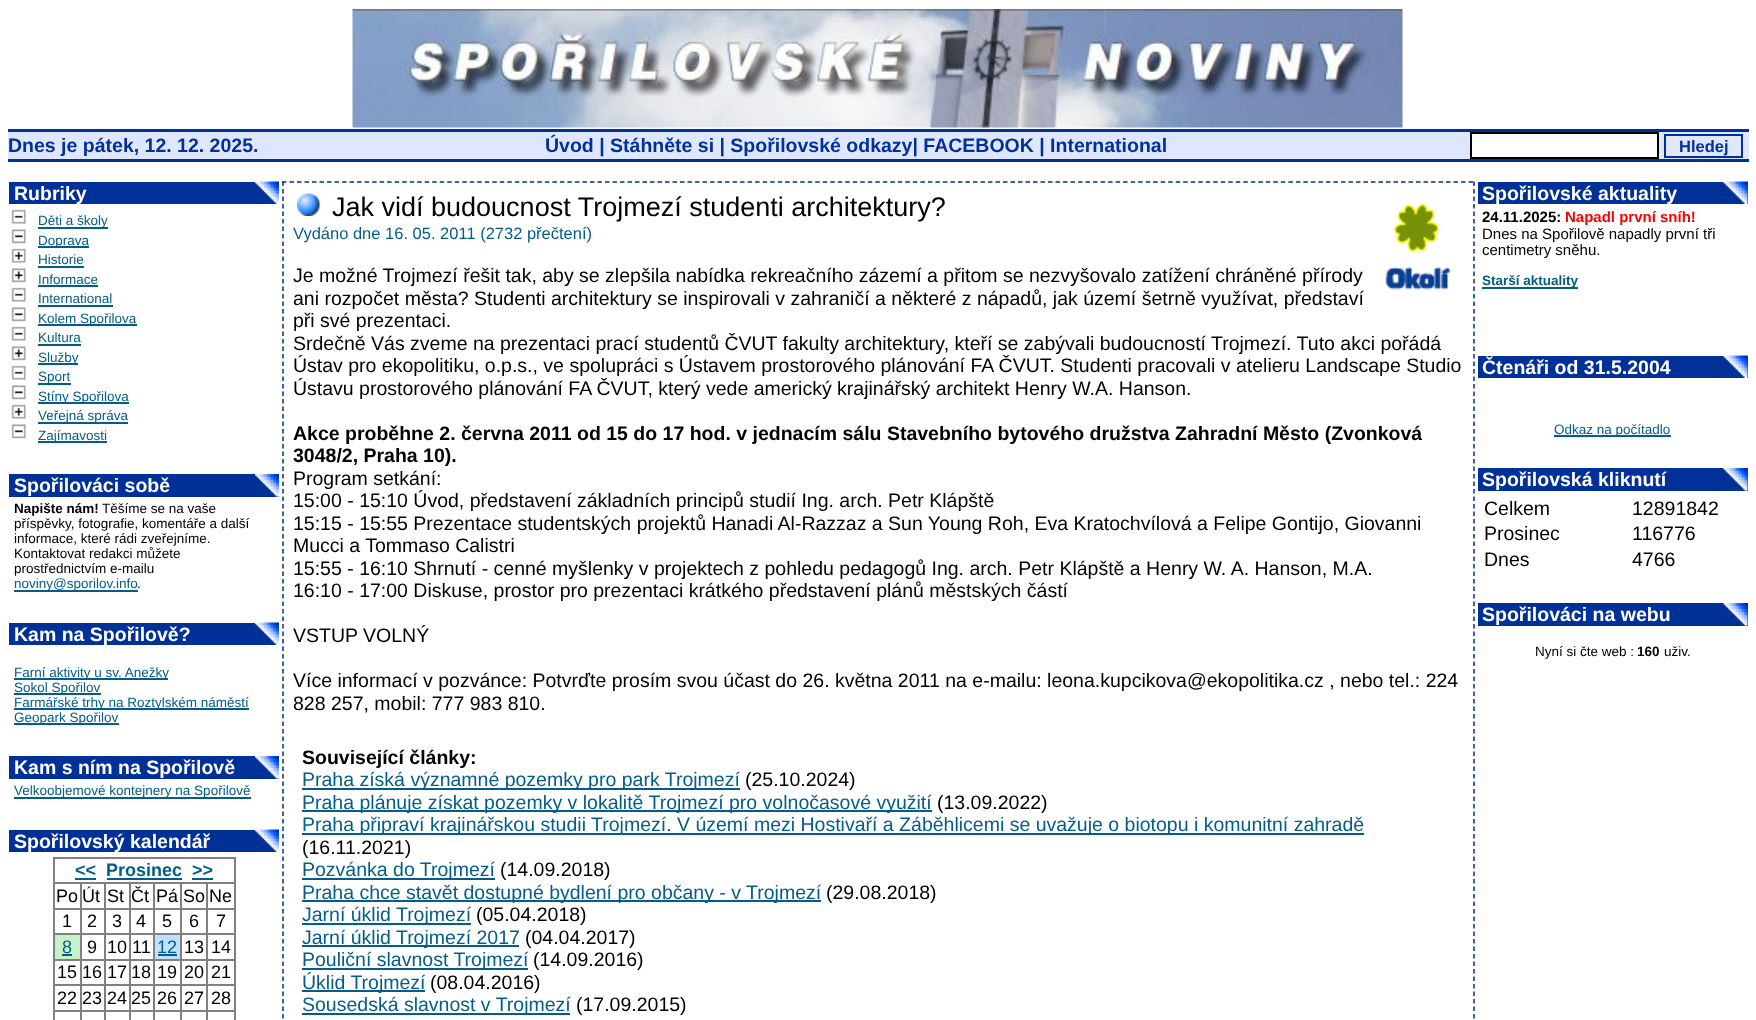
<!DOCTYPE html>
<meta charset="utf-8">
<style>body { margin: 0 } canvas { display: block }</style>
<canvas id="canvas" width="1756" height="1020"></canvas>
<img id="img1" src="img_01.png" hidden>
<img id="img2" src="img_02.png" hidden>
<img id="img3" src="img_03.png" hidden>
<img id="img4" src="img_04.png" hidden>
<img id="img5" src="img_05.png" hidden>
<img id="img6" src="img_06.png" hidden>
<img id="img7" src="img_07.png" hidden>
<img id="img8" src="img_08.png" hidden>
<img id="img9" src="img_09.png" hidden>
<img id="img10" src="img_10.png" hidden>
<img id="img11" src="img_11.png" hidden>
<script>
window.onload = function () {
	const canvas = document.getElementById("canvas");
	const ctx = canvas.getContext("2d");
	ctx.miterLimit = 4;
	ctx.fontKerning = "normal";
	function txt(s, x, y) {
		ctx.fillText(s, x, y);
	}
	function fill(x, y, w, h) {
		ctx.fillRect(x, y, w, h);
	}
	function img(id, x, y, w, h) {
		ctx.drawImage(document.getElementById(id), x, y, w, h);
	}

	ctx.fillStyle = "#FFFFFF";
	fill(0, 0, 1756, 1020);
	img("img1", 352, 9, 1051, 119);
	ctx.fillStyle = "#DEE7FF";
	fill(8, 132, 1741, 27);
	ctx.fillStyle = "#003098";
	fill(8, 129, 1741, 3);
	fill(8, 159, 1741, 3);
	ctx.fillStyle = "#FFFFFF";
	ctx.beginPath();
	ctx.rect(1471, 133, 187, 25);
	ctx.fill();
	ctx.strokeStyle = "#000000";
	ctx.lineWidth = 2;
	ctx.stroke();
	ctx.strokeStyle = "#003098";
	ctx.strokeRect(1665, 135, 77, 22);
	ctx.fillStyle = "#003098";
	fill(9, 182, 246, 22);
	img("img2", 255, 181, 24, 23);
	img("img3", 11, 209, 15, 15);
	ctx.fillStyle = "#035D8A";
	fill(38, 227, 70, 2);
	img("img4", 11, 229, 15, 15);
	fill(38, 246, 51, 2);
	img("img5", 11, 248, 15, 15);
	fill(38, 266, 46, 2);
	img("img6", 11, 268, 15, 15);
	fill(38, 285, 60, 2);
	img("img3", 11, 287, 15, 15);
	fill(38, 305, 75, 2);
	img("img4", 11, 307, 15, 15);
	fill(38, 324, 99, 2);
	img("img3", 11, 326, 15, 15);
	fill(38, 344, 43, 2);
	img("img6", 11, 346, 15, 15);
	fill(38, 363, 40, 2);
	img("img3", 11, 365, 15, 15);
	fill(38, 383, 33, 2);
	img("img4", 11, 385, 15, 15);
	fill(38, 402, 91, 2);
	img("img5", 11, 404, 15, 15);
	fill(38, 422, 90, 2);
	img("img4", 11, 424, 15, 15);
	fill(38, 441, 69, 2);
	ctx.fillStyle = "#003098";
	fill(9, 474, 270, 23);
	img("img7", 255, 474, 24, 23);
	ctx.fillStyle = "#035D8A";
	fill(14, 590, 124, 2);
	ctx.fillStyle = "#003098";
	fill(9, 623, 246, 22);
	img("img2", 255, 622, 24, 23);
	ctx.fillStyle = "#035D8A";
	fill(14, 678, 154, 2);
	fill(14, 693, 87, 2);
	fill(14, 708, 235, 2);
	fill(14, 723, 105, 2);
	ctx.fillStyle = "#003098";
	fill(9, 756, 270, 23);
	img("img7", 255, 756, 24, 23);
	ctx.fillStyle = "#035D8A";
	fill(14, 797, 237, 2);
	ctx.fillStyle = "#003098";
	fill(9, 830, 246, 22);
	img("img2", 255, 829, 24, 23);
	ctx.fillStyle = "#808080";
	fill(53, 857, 183, 2);
	fill(234, 857, 2, 163);
	fill(53, 857, 2, 163);
	ctx.fillStyle = "#035D8A";
	fill(75, 878, 21, 2);
	fill(107, 878, 75, 2);
	fill(192, 878, 21, 2);
	ctx.fillStyle = "#808080";
	fill(206, 882, 30, 2);
	fill(206, 908, 30, 2);
	fill(206, 933, 30, 2);
	fill(206, 959, 30, 2);
	fill(206, 984, 30, 2);
	fill(206, 1010, 30, 2);
	fill(206, 1010, 2, 10);
	fill(180, 1010, 27, 2);
	fill(206, 984, 2, 27);
	fill(180, 984, 27, 2);
	fill(206, 959, 2, 27);
	fill(180, 959, 27, 2);
	fill(206, 933, 2, 27);
	fill(180, 933, 27, 2);
	fill(206, 908, 2, 27);
	fill(180, 908, 27, 2);
	fill(206, 882, 2, 27);
	fill(180, 882, 27, 2);
	fill(180, 1010, 2, 10);
	fill(153, 1010, 29, 2);
	fill(180, 984, 2, 27);
	fill(153, 984, 29, 2);
	fill(180, 959, 2, 27);
	fill(153, 959, 29, 2);
	fill(180, 933, 2, 27);
	fill(153, 933, 29, 2);
	fill(180, 908, 2, 27);
	fill(153, 908, 29, 2);
	fill(180, 882, 2, 27);
	fill(153, 882, 29, 2);
	fill(153, 1010, 2, 10);
	fill(129, 1010, 26, 2);
	fill(153, 984, 2, 27);
	fill(129, 984, 26, 2);
	fill(153, 959, 2, 27);
	fill(129, 959, 26, 2);
	fill(153, 933, 2, 27);
	fill(129, 933, 26, 2);
	fill(153, 908, 2, 27);
	fill(129, 908, 26, 2);
	fill(153, 882, 2, 27);
	fill(129, 882, 26, 2);
	fill(129, 1010, 2, 10);
	fill(104, 1010, 27, 2);
	fill(129, 984, 2, 27);
	fill(104, 984, 27, 2);
	fill(129, 959, 2, 27);
	fill(104, 959, 27, 2);
	fill(129, 933, 2, 27);
	fill(104, 933, 27, 2);
	fill(129, 908, 2, 27);
	fill(104, 908, 27, 2);
	fill(129, 882, 2, 27);
	fill(104, 882, 27, 2);
	fill(104, 1010, 2, 10);
	fill(80, 1010, 25, 2);
	fill(104, 984, 2, 27);
	fill(80, 984, 25, 2);
	fill(104, 959, 2, 27);
	fill(80, 959, 25, 2);
	fill(104, 933, 2, 27);
	fill(80, 933, 25, 2);
	fill(104, 908, 2, 27);
	fill(80, 908, 25, 2);
	fill(104, 882, 2, 27);
	fill(80, 882, 25, 2);
	fill(80, 1010, 2, 10);
	fill(53, 1010, 28, 2);
	fill(80, 984, 2, 27);
	fill(53, 984, 28, 2);
	fill(80, 959, 2, 27);
	fill(53, 959, 28, 2);
	fill(80, 933, 2, 27);
	fill(53, 933, 28, 2);
	fill(80, 908, 2, 27);
	fill(53, 908, 28, 2);
	fill(80, 882, 2, 27);
	fill(53, 882, 28, 2);
	ctx.fillStyle = "#C7F1C7";
	fill(55, 935, 25, 24);
	ctx.fillStyle = "#035D8A";
	fill(62, 954, 10, 2);
	ctx.fillStyle = "#C1E0FF";
	fill(155, 935, 25, 24);
	ctx.fillStyle = "#035D8A";
	fill(158, 954, 19, 2);
	ctx.beginPath();
	ctx.moveTo(282, 182);
	ctx.lineTo(1474.5, 182);
	ctx.lineWidth = 1.5;
	ctx.setLineDash([4.5, 3.01]);
	ctx.stroke();
	ctx.beginPath();
	ctx.moveTo(1474, 181.5);
	ctx.lineTo(1474, 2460);
	ctx.setLineDash([4.5, 3]);
	ctx.stroke();
	ctx.beginPath();
	ctx.moveTo(283, 181.5);
	ctx.lineTo(283, 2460);
	ctx.stroke();
	img("img8", 297, 193, 23, 23);
	img("img9", 1385, 203, 66, 87);
	fill(302, 788, 438, 2);
	fill(302, 810, 630, 2);
	fill(302, 833, 1062, 2);
	fill(302, 878, 193, 2);
	fill(302, 900, 519, 2);
	fill(302, 923, 169, 2);
	fill(302, 945, 217, 2);
	fill(302, 968, 226, 2);
	fill(302, 990, 123, 2);
	fill(302, 1013, 268, 2);
	ctx.fillStyle = "#003098";
	fill(1478, 182, 270, 22);
	img("img10", 1723, 181, 25, 23);
	ctx.fillStyle = "#035D8A";
	fill(1482, 287, 96, 2);
	ctx.fillStyle = "#003098";
	fill(1478, 356, 270, 22);
	img("img10", 1723, 355, 25, 23);
	ctx.fillStyle = "#035D8A";
	fill(1554, 435, 117, 2);
	ctx.fillStyle = "#003098";
	fill(1478, 468, 270, 23);
	img("img11", 1723, 468, 25, 23);
	fill(1478, 603, 270, 23);
	img("img11", 1723, 603, 25, 23);
	ctx.font = "bold 19.5px Liberation Sans";
	txt("Dnes je pátek, 12. 12. 2025.", 8, 152);
	txt("Úvod | Stáhněte si | Spořilovské odkazy| FACEBOOK | International", 545, 152);
	ctx.font = "bold 16.5px Liberation Sans";
	txt("Hledej", 1679, 152);
	ctx.font = "bold 19.5px Liberation Sans";
	ctx.fillStyle = "#FFFFFF";
	txt("Rubriky", 14, 200);
	ctx.font = "13.5px Liberation Sans";
	ctx.fillStyle = "#035D8A";
	txt("Děti a školy", 38, 225);
	txt("Doprava", 38, 245);
	txt("Historie", 38, 264);
	txt("Informace", 38, 284);
	txt("International", 38, 303);
	txt("Kolem Spořilova", 38, 323);
	txt("Kultura", 38, 342);
	txt("Služby", 38, 362);
	txt("Sport", 38, 381);
	txt("Stíny Spořilova", 38, 401);
	txt("Veřejná správa", 38, 420);
	txt("Zajímavosti", 38, 440);
	ctx.font = "bold 19.5px Liberation Sans";
	ctx.fillStyle = "#FFFFFF";
	txt("Spořilováci sobě", 14, 492);
	ctx.font = "bold 13.5px Liberation Sans";
	ctx.fillStyle = "#000000";
	txt("Napište nám!", 14, 513);
	ctx.font = "13.5px Liberation Sans";
	txt("Těšíme se na vaše", 102, 513);
	txt("příspěvky, fotografie, komentáře a další", 14, 528);
	txt("informace, které rádi zveřejníme.", 14, 543);
	txt("Kontaktovat redakci můžete", 14, 558);
	txt("prostřednictvím e-mailu", 14, 573);
	ctx.fillStyle = "#035D8A";
	txt("noviny@sporilov.info", 14, 588);
	ctx.fillStyle = "#000000";
	txt(".", 137, 588);
	ctx.font = "bold 19.5px Liberation Sans";
	ctx.fillStyle = "#FFFFFF";
	txt("Kam na Spořilově?", 14, 641);
	ctx.font = "13.5px Liberation Sans";
	ctx.fillStyle = "#035D8A";
	txt("Farní aktivity u sv. Anežky", 14, 677);
	txt("Sokol Spořilov", 14, 692);
	txt("Farmářské trhy na Roztylském náměstí", 14, 707);
	txt("Geopark Spořilov", 14, 722);
	ctx.font = "bold 19.5px Liberation Sans";
	ctx.fillStyle = "#FFFFFF";
	txt("Kam s ním na Spořilově", 14, 774);
	ctx.font = "13.5px Liberation Sans";
	ctx.fillStyle = "#035D8A";
	txt("Velkoobjemové kontejnery na Spořilově", 14, 795);
	ctx.font = "bold 19.5px Liberation Sans";
	ctx.fillStyle = "#FFFFFF";
	txt("Spořilovský kalendář", 14, 848);
	ctx.font = "bold 18px Liberation Sans";
	ctx.fillStyle = "#035D8A";
	txt("<<", 75, 876);
	txt("Prosinec", 106, 876);
	txt(">>", 192, 876);
	ctx.font = "18px Liberation Sans";
	ctx.fillStyle = "#000000";
	txt("Po", 56, 902);
	txt("Út", 82, 902);
	txt("St", 107, 902);
	txt("Čt", 131, 902);
	txt("Pá", 156, 902);
	txt("So", 183, 902);
	txt("Ne", 209, 902);
	txt("1", 62, 927);
	txt("2", 87, 927);
	txt("3", 112, 927);
	txt("4", 136, 927);
	txt("5", 162, 927);
	txt("6", 189, 927);
	txt("7", 216, 927);
	ctx.fillStyle = "#035D8A";
	txt("8", 62, 953);
	ctx.fillStyle = "#000000";
	txt("9", 87, 953);
	txt("10 11", 107, 953);
	ctx.fillStyle = "#035D8A";
	txt("12", 157, 953);
	ctx.fillStyle = "#000000";
	txt("13", 184, 953);
	txt("14", 211, 953);
	txt("15", 57, 978);
	txt("16", 82, 978);
	txt("17", 107, 978);
	txt("18", 131, 978);
	txt("19", 157, 978);
	txt("20", 184, 978);
	txt("21", 211, 978);
	txt("22", 57, 1004);
	txt("23", 82, 1004);
	txt("24", 107, 1004);
	txt("25", 131, 1004);
	txt("26", 157, 1004);
	txt("27", 184, 1004);
	txt("28", 211, 1004);
	ctx.font = "27px Liberation Sans";
	txt("Jak vidí budoucnost Trojmezí studenti architektury?", 332, 216);
	ctx.font = "16.5px Liberation Sans";
	ctx.fillStyle = "#035D8A";
	txt("Vydáno dne 16. 05. 2011 (2732 přečtení)", 293, 239);
	ctx.font = "19.5px Liberation Sans";
	ctx.fillStyle = "#000000";
	txt("Je možné Trojmezí řešit tak, aby se zlepšila nabídka rekreačního zázemí a přitom se nezvyšovalo zatížení chráněné přírody", 293, 282);
	txt("ani rozpočet města? Studenti architektury se inspirovali v zahraničí a některé z nápadů, jak území šetrně využívat, představí", 293, 305);
	txt("při své prezentaci.", 293, 327);
	txt("Srdečně Vás zveme na prezentaci prací studentů ČVUT fakulty architektury, kteří se zabývali budoucností", 293, 350);
	txt("Trojmezí. Tuto akci pořádá", 1211, 350);
	txt("Ústav pro ekopolitiku, o.p.s., ve spolupráci s Ústavem prostorového plánování FA ČVUT. Studenti pracovali v atelieru Landscape Studio", 293, 372);
	txt("Ústavu prostorového plánování FA ČVUT, který vede americký krajinářský architekt Henry W.A. Hanson.", 293, 395);
	ctx.font = "bold 19.5px Liberation Sans";
	txt("Akce proběhne 2. června 2011 od 15 do 17 hod. v jednacím sálu Stavebního bytového družstva Zahradní Město (Zvonková", 293, 440);
	txt("3048/2, Praha 10).", 293, 462);
	ctx.font = "19.5px Liberation Sans";
	txt("Program setkání:", 293, 485);
	txt("15:00 - 15:10 Úvod, představení základních principů studií Ing. arch. Petr Klápště", 293, 507);
	txt("15:15 - 15:55 Prezentace studentských projektů Hanadi Al-Razzaz a Sun Young Roh, Eva Kratochvílová a Felipe Gontijo, Giovanni", 293, 530);
	txt("Mucci a Tommaso Calistri", 293, 552);
	txt("15:55 - 16:10 Shrnutí - cenné myšlenky v projektech z pohledu pedagogů Ing. arch. Petr Klápště a Henry W. A. Hanson, M.A.", 293, 575);
	txt("16:10 - 17:00 Diskuse, prostor pro prezentaci krátkého představení plánů městských částí", 293, 597);
	txt("VSTUP VOLNÝ", 293, 642);
	txt("Více informací v pozvánce: Potvrďte prosím svou účast do 26. května 2011 na e-mailu: leona.kupcikova@ekopolitika.cz , nebo tel.: 224", 293, 687);
	txt("828 257, mobil: 777 983 810.", 293, 710);
	ctx.font = "bold 19.5px Liberation Sans";
	txt("Související články:", 302, 764);
	ctx.font = "19.5px Liberation Sans";
	ctx.fillStyle = "#035D8A";
	txt("Praha získá významné pozemky pro park Trojmezí", 302, 786);
	ctx.fillStyle = "#000000";
	txt("(25.10.2024)", 745, 786);
	ctx.fillStyle = "#035D8A";
	txt("Praha plánuje získat pozemky v lokalitě Trojmezí pro volnočasové využití", 302, 809);
	ctx.fillStyle = "#000000";
	txt("(13.09.2022)", 937, 809);
	ctx.fillStyle = "#035D8A";
	txt("Praha připraví krajinářskou studii Trojmezí. V území mezi Hostivaří a Záběhlicemi se uvažuje o biotopu i komunitní zahradě", 302, 831);
	ctx.fillStyle = "#000000";
	txt("(16.11.2021)", 302, 854);
	ctx.fillStyle = "#035D8A";
	txt("Pozvánka do Trojmezí", 302, 876);
	ctx.fillStyle = "#000000";
	txt("(14.09.2018)", 500, 876);
	ctx.fillStyle = "#035D8A";
	txt("Praha chce stavět dostupné bydlení pro občany - v Trojmezí", 302, 899);
	ctx.fillStyle = "#000000";
	txt("(29.08.2018)", 826, 899);
	ctx.fillStyle = "#035D8A";
	txt("Jarní úklid Trojmezí", 302, 921);
	ctx.fillStyle = "#000000";
	txt("(05.04.2018)", 476, 921);
	ctx.fillStyle = "#035D8A";
	txt("Jarní úklid Trojmezí 2017", 302, 944);
	ctx.fillStyle = "#000000";
	txt("(04.04.2017)", 525, 944);
	ctx.fillStyle = "#035D8A";
	txt("Pouliční slavnost Trojmezí", 302, 966);
	ctx.fillStyle = "#000000";
	txt("(14.09.2016)", 533, 966);
	ctx.fillStyle = "#035D8A";
	txt("Úklid Trojmezí", 302, 989);
	ctx.fillStyle = "#000000";
	txt("(08.04.2016)", 430, 989);
	ctx.fillStyle = "#035D8A";
	txt("Sousedská slavnost v Trojmezí", 302, 1011);
	ctx.fillStyle = "#000000";
	txt("(17.09.2015)", 576, 1011);
	ctx.font = "bold 19.5px Liberation Sans";
	ctx.fillStyle = "#FFFFFF";
	txt("Spořilovské aktuality", 1482, 200);
	ctx.font = "bold 15px Liberation Sans";
	ctx.fillStyle = "#000000";
	txt("24.11.2025:", 1482, 222);
	ctx.fillStyle = "#FF0000";
	txt("Napadl první sníh!", 1565, 222);
	ctx.font = "15px Liberation Sans";
	ctx.fillStyle = "#000000";
	txt("Dnes na Spořilově napadly první tři", 1482, 239);
	txt("centimetry sněhu.", 1482, 255);
	ctx.font = "bold 13.5px Liberation Sans";
	ctx.fillStyle = "#035D8A";
	txt("Starší aktuality", 1482, 285);
	ctx.font = "bold 19.5px Liberation Sans";
	ctx.fillStyle = "#FFFFFF";
	txt("Čtenáři od 31.5.2004", 1482, 374);
	ctx.font = "13.5px Liberation Sans";
	ctx.fillStyle = "#035D8A";
	txt("Odkaz na počítadlo", 1554, 434);
	ctx.font = "bold 19.5px Liberation Sans";
	ctx.fillStyle = "#FFFFFF";
	txt("Spořilovská kliknutí", 1482, 486);
	ctx.font = "19.5px Liberation Sans";
	ctx.fillStyle = "#000000";
	txt("Celkem", 1484, 515);
	txt("12891842", 1632, 515);
	txt("Prosinec", 1484, 540);
	txt("116776", 1632, 540);
	txt("Dnes", 1484, 566);
	txt("4766", 1632, 566);
	ctx.font = "bold 19.5px Liberation Sans";
	ctx.fillStyle = "#FFFFFF";
	txt("Spořilováci na webu", 1482, 621);
	ctx.font = "13.5px Liberation Sans";
	ctx.fillStyle = "#000000";
	txt("Nyní si čte web :", 1535, 656);
	ctx.font = "bold 13.5px Liberation Sans";
	txt("160", 1637, 656);
	ctx.font = "13.5px Liberation Sans";
	txt("uživ.", 1664, 656);
};
</script>
